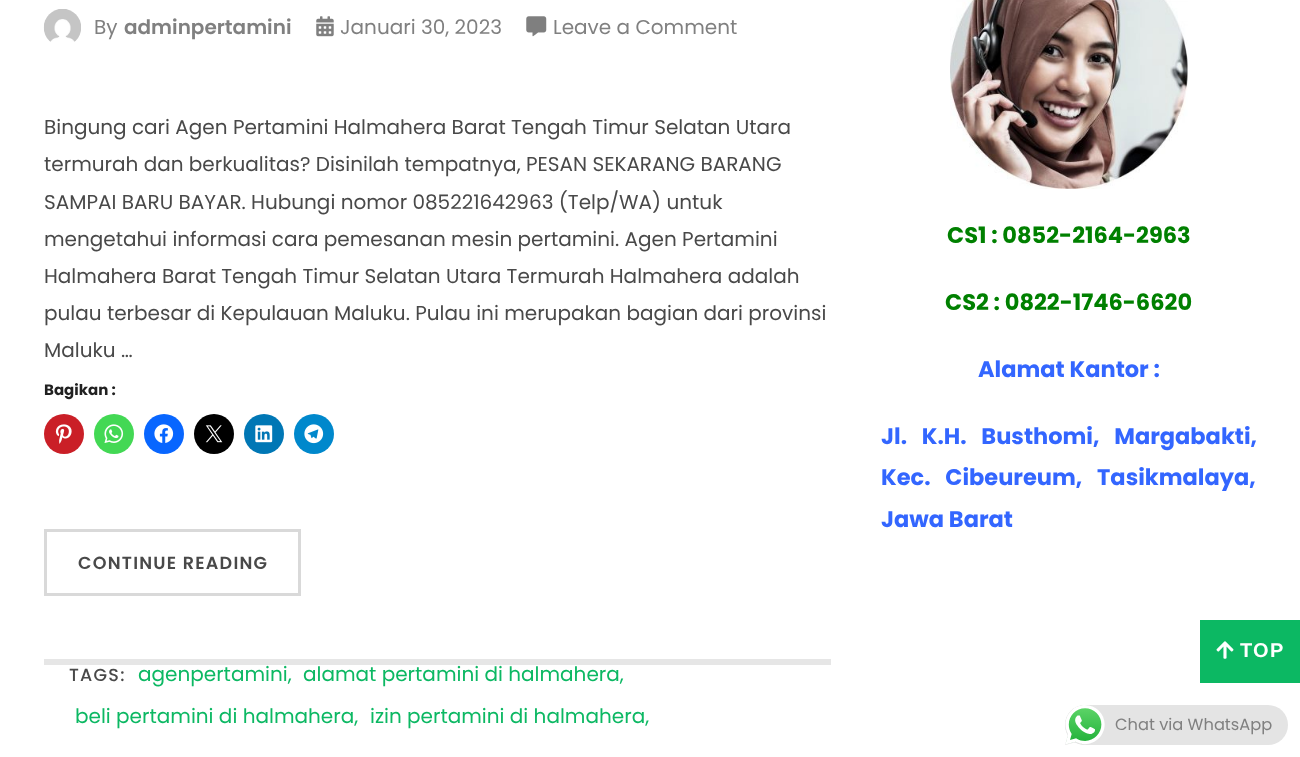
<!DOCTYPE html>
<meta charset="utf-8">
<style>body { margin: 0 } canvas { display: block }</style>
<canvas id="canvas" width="1300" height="757"></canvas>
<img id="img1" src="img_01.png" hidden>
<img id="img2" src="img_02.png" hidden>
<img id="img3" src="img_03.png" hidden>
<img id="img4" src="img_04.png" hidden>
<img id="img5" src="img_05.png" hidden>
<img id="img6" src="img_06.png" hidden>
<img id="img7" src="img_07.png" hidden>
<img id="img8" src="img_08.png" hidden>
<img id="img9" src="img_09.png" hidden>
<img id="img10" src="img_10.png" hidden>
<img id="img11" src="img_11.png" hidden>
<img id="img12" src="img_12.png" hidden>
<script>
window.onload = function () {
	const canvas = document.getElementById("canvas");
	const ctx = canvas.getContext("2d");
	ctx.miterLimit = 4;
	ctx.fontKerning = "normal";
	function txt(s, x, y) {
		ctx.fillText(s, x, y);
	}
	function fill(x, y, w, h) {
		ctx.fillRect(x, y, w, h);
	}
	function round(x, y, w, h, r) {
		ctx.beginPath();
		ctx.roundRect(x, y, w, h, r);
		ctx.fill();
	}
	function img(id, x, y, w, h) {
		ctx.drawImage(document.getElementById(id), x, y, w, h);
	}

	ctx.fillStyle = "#FFFFFF";
	fill(0, 0, 1300, 757);
	ctx.fillStyle = "#E6E6E6";
	fill(44, 659, 787, 6);
	img("img1", 43, 9, 38, 33);
	img("img2", 316, 16, 18, 21);
	img("img3", 526, 16, 21, 21);
	ctx.fillStyle = "#CA1F27";
	ctx.beginPath();
	ctx.arc(64, 434, 20, 0, Math.PI * 2);
	ctx.fill();
	img("img4", 55, 424, 17, 20);
	ctx.fillStyle = "#43D854";
	ctx.beginPath();
	ctx.arc(114, 434, 20, 0, Math.PI * 2);
	ctx.fill();
	img("img5", 104, 424, 20, 19);
	ctx.fillStyle = "#0866FF";
	ctx.beginPath();
	ctx.arc(164, 434, 20, 0, Math.PI * 2);
	ctx.fill();
	img("img6", 154, 424, 20, 19);
	ctx.fillStyle = "#000000";
	ctx.beginPath();
	ctx.arc(214, 434, 20, 0, Math.PI * 2);
	ctx.fill();
	img("img7", 205, 425, 18, 18);
	ctx.fillStyle = "#0077B5";
	ctx.beginPath();
	ctx.arc(264, 434, 20, 0, Math.PI * 2);
	ctx.fill();
	img("img8", 255, 425, 18, 18);
	ctx.fillStyle = "#0088CC";
	ctx.beginPath();
	ctx.arc(314, 434, 20, 0, Math.PI * 2);
	ctx.fill();
	img("img9", 304, 424, 20, 20);
	ctx.strokeStyle = "#D9D9D9";
	ctx.lineWidth = 3;
	ctx.strokeRect(45.5, 530.5, 254, 64);
	img("img10", 950, 0, 238, 189);
	ctx.fillStyle = "#0CB863";
	fill(1200, 620, 100, 63);
	img("img11", 1216, 641, 18, 18);
	ctx.fillStyle = "#E4E4E4";
	round(1065, 705, 223, 40, 20);
	img("img12", 1065, 705, 40, 40);
	ctx.font = "20px Poppins";
	ctx.fillStyle = "#808080";
	txt("By", 94, 34);
	ctx.font = "600 20px Poppins";
	txt("adminpertamini", 124, 34);
	ctx.font = "20px Poppins";
	txt("Januari 30, 2023", 340, 34);
	txt("Leave a Comment", 553, 34);
	ctx.fillStyle = "#494949";
	txt("Bingung cari Agen Pertamini Halmahera Barat Tengah Timur Selatan Utara", 44, 134);
	txt("termurah dan berkualitas? Disinilah tempatnya, PESAN SEKARANG BARANG", 44, 171);
	txt("SAMPAI BARU BAYAR. Hubungi nomor 085221642963 (Telp/WA) untuk", 44, 209);
	txt("mengetahui informasi cara pemesanan mesin pertamini. Agen Pertamini", 44, 246);
	txt("Halmahera Barat Tengah Timur Selatan Utara Termurah Halmahera adalah", 44, 283);
	txt("pulau terbesar di Kepulauan Maluku. Pulau ini merupakan bagian dari provinsi", 44, 320);
	txt("Maluku …", 44, 357);
	ctx.font = "bold 15px Poppins";
	ctx.fillStyle = "#212121";
	txt("Bagikan :", 44, 395);
	ctx.letterSpacing = "1.25px";
	ctx.font = "600 17.5px Poppins";
	ctx.fillStyle = "#494949";
	txt("CONTINUE READING", 78, 569);
	ctx.font = "500 17.5px Poppins";
	txt("TAGS:", 69, 681);
	ctx.letterSpacing = "0px";
	ctx.font = "20px Poppins";
	ctx.fillStyle = "#0CB863";
	txt("agenpertamini,", 138, 681);
	txt("alamat pertamini di halmahera,", 303, 681);
	txt("beli pertamini di halmahera,", 75, 723);
	txt("izin pertamini di halmahera,", 370, 723);
	ctx.font = "bold 22.5px Poppins";
	ctx.fillStyle = "#008000";
	txt("CS1 : 0852-2164-2963", 947, 243);
	txt("CS2 : 0822-1746-6620", 945, 310);
	ctx.fillStyle = "#3366FF";
	txt("Alamat Kantor :", 978, 377);
	ctx.wordSpacing = "10px";
	txt("Jl. K.H. Busthomi, Margabakti,", 881, 444);
	txt("Kec. Cibeureum, Tasikmalaya,", 881, 485);
	ctx.wordSpacing = "0px";
	txt("Jawa Barat", 881, 527);
	ctx.letterSpacing = "1.25px";
	ctx.font = "bold 20px Liberation Sans";
	ctx.fillStyle = "#FFFFFF";
	txt("TOP", 1240, 657);
	ctx.letterSpacing = "0px";
	ctx.font = "16.25px Poppins";
	ctx.fillStyle = "#808080";
	txt("Chat via WhatsApp", 1115, 730);
};
</script>
